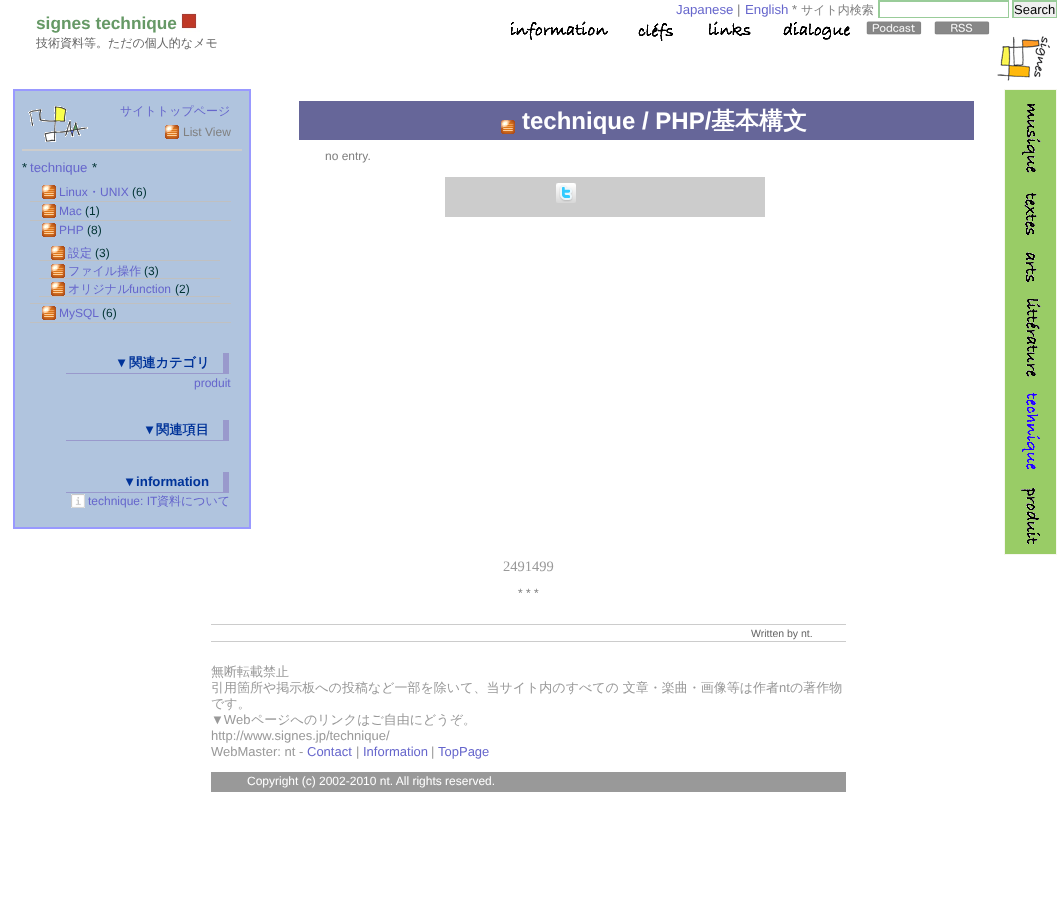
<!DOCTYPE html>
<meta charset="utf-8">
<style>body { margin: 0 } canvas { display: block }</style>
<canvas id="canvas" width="1057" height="922"></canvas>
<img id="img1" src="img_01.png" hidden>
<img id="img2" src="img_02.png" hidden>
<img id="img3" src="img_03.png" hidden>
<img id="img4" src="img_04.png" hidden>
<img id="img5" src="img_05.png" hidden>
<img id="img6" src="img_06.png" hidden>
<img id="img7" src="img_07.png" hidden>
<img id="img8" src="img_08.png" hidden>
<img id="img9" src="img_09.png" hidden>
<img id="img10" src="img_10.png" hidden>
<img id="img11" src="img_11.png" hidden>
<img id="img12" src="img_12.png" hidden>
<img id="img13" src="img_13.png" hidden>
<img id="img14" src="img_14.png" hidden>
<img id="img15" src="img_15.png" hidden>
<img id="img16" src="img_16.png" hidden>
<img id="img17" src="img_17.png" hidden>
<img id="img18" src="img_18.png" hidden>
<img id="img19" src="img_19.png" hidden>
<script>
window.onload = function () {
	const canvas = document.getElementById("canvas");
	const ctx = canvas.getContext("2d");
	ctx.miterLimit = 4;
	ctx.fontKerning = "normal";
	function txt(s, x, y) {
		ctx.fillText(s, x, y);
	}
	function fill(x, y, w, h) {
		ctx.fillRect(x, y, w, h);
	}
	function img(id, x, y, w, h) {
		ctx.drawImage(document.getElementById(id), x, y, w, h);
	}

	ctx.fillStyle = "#FFFFFF";
	fill(0, 0, 1057, 922);
	ctx.fillStyle = "#99CC99";
	fill(878, 0, 131, 2);
	fill(1008, 0, 1, 18);
	fill(878, 17, 131, 1);
	fill(878, 0, 2, 18);
	ctx.fillStyle = "#EFEFEF";
	fill(1014, 2, 42, 15);
	ctx.fillStyle = "#99CC99";
	fill(1012, 0, 45, 2);
	fill(1056, 0, 1, 18);
	fill(1012, 17, 45, 1);
	fill(1012, 0, 2, 18);
	img("img1", 511, 21, 97, 19);
	img("img2", 638, 23, 35, 18);
	img("img3", 709, 21, 42, 15);
	img("img4", 783, 22, 67, 18);
	img("img5", 866, 21, 56, 14);
	img("img6", 934, 21, 56, 14);
	img("img7", 997, 36, 53, 45);
	img("img8", 181, 12, 19, 20);
	ctx.fillStyle = "#B0C4DE";
	ctx.beginPath();
	ctx.rect(14, 90, 236, 438);
	ctx.fill();
	ctx.strokeStyle = "#9999FF";
	ctx.lineWidth = 2;
	ctx.stroke();
	img("img9", 28, 106, 60, 36);
	img("img10", 165, 125, 14, 14);
	ctx.fillStyle = "#CCCCCC";
	fill(22, 149, 220, 2);
	ctx.fillStyle = "#C0C0C0";
	fill(30, 201, 201, 1);
	img("img10", 42, 185, 14, 14);
	fill(30, 220, 201, 1);
	img("img10", 42, 204, 14, 14);
	fill(30, 303, 201, 1);
	img("img10", 42, 223, 14, 14);
	fill(39, 260, 181, 1);
	img("img10", 51, 246, 14, 14);
	fill(39, 278, 181, 1);
	img("img10", 51, 264, 14, 14);
	fill(39, 296, 181, 1);
	img("img10", 51, 282, 14, 14);
	fill(30, 322, 201, 1);
	img("img10", 42, 306, 14, 14);
	ctx.fillStyle = "#9999CC";
	fill(223, 353, 6, 21);
	fill(66, 373, 163, 1);
	fill(223, 420, 6, 21);
	fill(66, 440, 163, 1);
	fill(223, 472, 6, 21);
	fill(66, 492, 163, 1);
	img("img11", 71, 494, 14, 14);
	ctx.fillStyle = "#666699";
	fill(299, 101, 675, 39);
	img("img12", 501, 120, 14, 14);
	ctx.fillStyle = "#CCCCCC";
	fill(445, 177, 320, 40);
	img("img13", 556, 183, 20, 20);
	ctx.fillStyle = "#F6F7EE";
	fill(1004, 89, 53, 466);
	ctx.fillStyle = "#99CC66";
	fill(1005, 90, 51, 464);
	img("img14", 1021, 104, 20, 69);
	img("img15", 1024, 193, 13, 42);
	img("img16", 1025, 252, 12, 30);
	img("img17", 1026, 299, 15, 78);
	img("img18", 1022, 393, 18, 76);
	img("img19", 1021, 488, 19, 57);
	ctx.fillStyle = "#CCCCCC";
	fill(211, 624, 635, 1);
	fill(211, 641, 635, 1);
	ctx.fillStyle = "#999999";
	fill(211, 772, 635, 20);
	ctx.font = "13.25px Liberation Sans";
	ctx.fillStyle = "#6666CC";
	txt("Japanese", 676, 14);
	ctx.fillStyle = "#808080";
	txt("|", 737, 14);
	ctx.fillStyle = "#6666CC";
	txt("English", 745, 14);
	ctx.fillStyle = "#808080";
	txt("*", 792, 14);
	ctx.font = "500 12px WenQuanYi Zen Hei";
	txt("サイト内検索", 801, 14);
	ctx.font = "13px Liberation Sans";
	ctx.fillStyle = "#000000";
	txt("Search", 1014, 14);
	ctx.font = "bold 17.25px Liberation Sans";
	ctx.fillStyle = "#669966";
	txt("signes technique", 36, 29);
	ctx.font = "500 12px WenQuanYi Zen Hei";
	ctx.fillStyle = "#666666";
	txt("技術資料等。ただの個人的なメモ", 36, 47);
	ctx.fillStyle = "#6666CC";
	txt("サイトトップページ", 120, 115);
	ctx.font = "12px Liberation Sans";
	ctx.fillStyle = "#808080";
	txt("List View", 183, 136);
	ctx.font = "13.25px Liberation Sans";
	ctx.fillStyle = "#003333";
	txt("*", 22, 172);
	ctx.fillStyle = "#6666CC";
	txt("technique", 30, 172);
	ctx.fillStyle = "#003333";
	txt("*", 92, 172);
	ctx.font = "12px Liberation Sans";
	ctx.fillStyle = "#6666CC";
	txt("Linux", 59, 196);
	ctx.font = "500 12px WenQuanYi Zen Hei";
	txt("・", 88, 196);
	ctx.font = "12px Liberation Sans";
	txt("UNIX", 100, 196);
	ctx.fillStyle = "#003333";
	txt("(6)", 132, 196);
	ctx.fillStyle = "#6666CC";
	txt("Mac", 59, 215);
	ctx.fillStyle = "#003333";
	txt("(1)", 85, 215);
	ctx.fillStyle = "#6666CC";
	txt("PHP", 59, 234);
	ctx.fillStyle = "#003333";
	txt("(8)", 87, 234);
	ctx.font = "500 12px WenQuanYi Zen Hei";
	ctx.fillStyle = "#6666CC";
	txt("設定", 68, 257);
	ctx.font = "12px Liberation Sans";
	ctx.fillStyle = "#003333";
	txt("(3)", 95, 257);
	ctx.font = "500 12px WenQuanYi Zen Hei";
	ctx.fillStyle = "#6666CC";
	txt("ファイル操作", 68, 275);
	ctx.font = "12px Liberation Sans";
	ctx.fillStyle = "#003333";
	txt("(3)", 144, 275);
	ctx.font = "500 12px WenQuanYi Zen Hei";
	ctx.fillStyle = "#6666CC";
	txt("オリジナル", 68, 293);
	ctx.font = "12px Liberation Sans";
	txt("function", 129, 293);
	ctx.fillStyle = "#003333";
	txt("(2)", 175, 293);
	ctx.fillStyle = "#6666CC";
	txt("MySQL", 59, 317);
	ctx.fillStyle = "#003333";
	txt("(6)", 102, 317);
	ctx.font = "bold 13.25px Liberation Sans";
	ctx.fillStyle = "#003399";
	txt("▼", 115, 367);
	ctx.font = "bold 13.25px WenQuanYi Zen Hei";
	txt("関連カテゴリ", 129, 367);
	ctx.font = "12px Liberation Sans";
	ctx.fillStyle = "#6666CC";
	txt("produit", 194, 387);
	ctx.font = "bold 13.25px Liberation Sans";
	ctx.fillStyle = "#003399";
	txt("▼", 143, 434);
	ctx.font = "bold 13.25px WenQuanYi Zen Hei";
	txt("関連項目", 156, 434);
	ctx.font = "bold 13.25px Liberation Sans";
	txt("▼information", 123, 486);
	ctx.font = "12px Liberation Sans";
	ctx.fillStyle = "#6666CC";
	txt("technique: IT", 88, 505);
	ctx.font = "500 12px WenQuanYi Zen Hei";
	txt("資料について", 157, 505);
	ctx.font = "bold 24px Liberation Sans";
	ctx.fillStyle = "#FFFFFF";
	txt("technique / PHP/", 522, 129);
	ctx.font = "bold 24px WenQuanYi Zen Hei";
	txt("基本構文", 711, 129);
	ctx.font = "12px Liberation Sans";
	ctx.fillStyle = "#808080";
	txt("no entry.", 325, 160);
	ctx.font = "14.5px Liberation Serif";
	ctx.fillStyle = "#999999";
	txt("2491499", 503, 571);
	ctx.font = "12px Liberation Sans";
	ctx.fillStyle = "#808080";
	txt("* * *", 518, 597);
	ctx.font = "10.5px Liberation Sans";
	ctx.fillStyle = "#666666";
	txt("Written by nt.", 751, 637);
	ctx.font = "500 13px WenQuanYi Zen Hei";
	ctx.fillStyle = "#999999";
	txt("無断転載禁止", 211, 676);
	txt("引用箇所や掲示板への投稿など一部を除いて、当サイト内のすべての 文章・楽曲・画像等は作者", 211, 692);
	ctx.font = "13px Liberation Sans";
	txt("nt", 779, 692);
	ctx.font = "500 13px WenQuanYi Zen Hei";
	txt("の著作物", 790, 692);
	txt("です。", 211, 708);
	ctx.font = "13px Liberation Sans";
	txt("▼Web", 211, 724);
	ctx.font = "500 13px WenQuanYi Zen Hei";
	txt("ページへのリンクはご自由にどうぞ。", 251, 724);
	ctx.font = "13px Liberation Sans";
	txt("http://www.signes.jp/technique/", 211, 740);
	txt("WebMaster: nt -", 211, 756);
	ctx.fillStyle = "#6666CC";
	txt("Contact", 307, 756);
	ctx.fillStyle = "#999999";
	txt("|", 356, 756);
	ctx.fillStyle = "#6666CC";
	txt("Information", 363, 756);
	ctx.fillStyle = "#999999";
	txt("|", 431, 756);
	ctx.fillStyle = "#6666CC";
	txt("TopPage", 438, 756);
	ctx.font = "12px Liberation Sans";
	ctx.fillStyle = "#FFFFFF";
	txt("Copyright (c) 2002-2010 nt. All rights reserved.", 247, 785);
};
</script>
